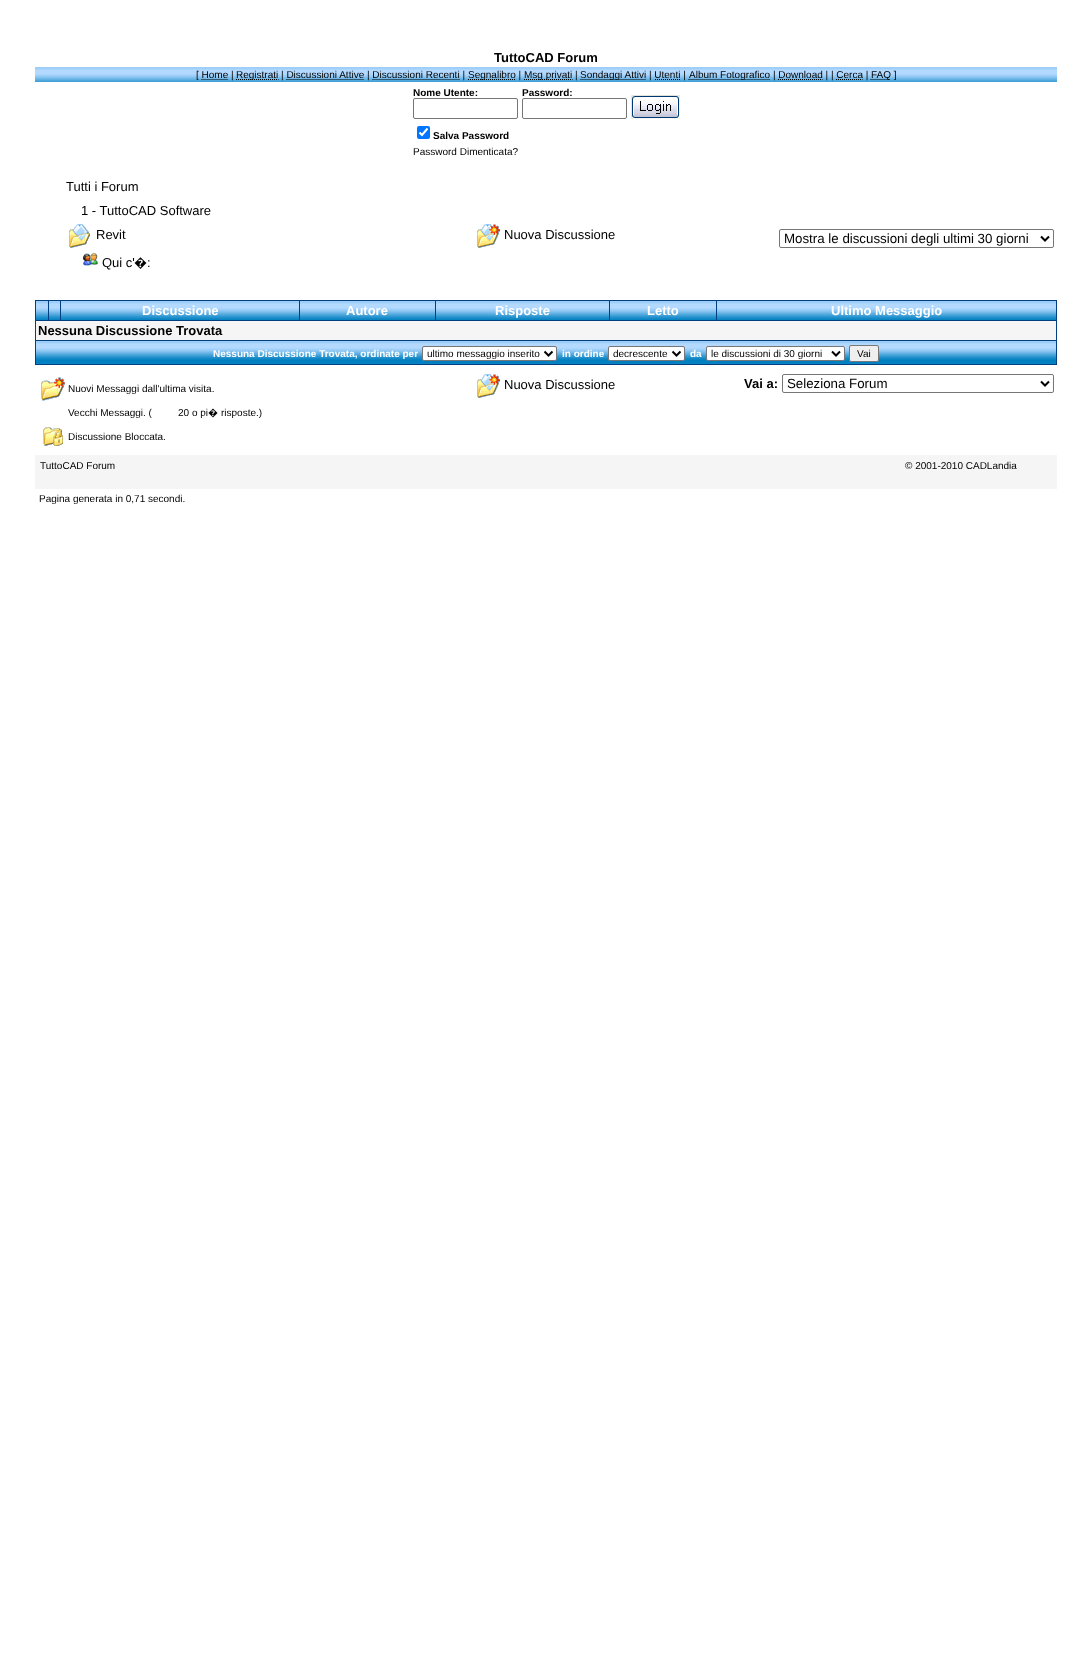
<!DOCTYPE html>
<meta charset="utf-8">
<style>body { margin: 0 } canvas { display: block }</style>
<canvas id="canvas" width="1092" height="1665"></canvas>
<img id="img1" src="img_01.png" hidden>
<img id="img2" src="img_02.png" hidden>
<img id="img3" src="img_03.png" hidden>
<img id="img4" src="img_04.png" hidden>
<img id="img5" src="img_05.png" hidden>
<img id="img6" src="img_06.png" hidden>
<img id="img7" src="img_07.png" hidden>
<img id="img8" src="img_08.png" hidden>
<img id="img9" src="img_09.png" hidden>
<img id="img10" src="img_10.png" hidden>
<img id="img11" src="img_11.png" hidden>
<img id="img12" src="img_12.png" hidden>
<img id="img13" src="img_13.png" hidden>
<img id="img14" src="img_14.png" hidden>
<img id="img15" src="img_15.png" hidden>
<script>
window.onload = function () {
	const canvas = document.getElementById("canvas");
	const ctx = canvas.getContext("2d");
	ctx.miterLimit = 4;
	ctx.fontKerning = "normal";
	function txt(s, x, y) {
		ctx.fillText(s, x, y);
	}
	function fill(x, y, w, h) {
		ctx.fillRect(x, y, w, h);
	}
	function round(x, y, w, h, r) {
		ctx.beginPath();
		ctx.roundRect(x, y, w, h, r);
		ctx.fill();
	}
	function img(id, x, y, w, h) {
		ctx.drawImage(document.getElementById(id), x, y, w, h);
	}

	ctx.fillStyle = "#FFFFFF";
	fill(0, 0, 1092, 1665);
	img("img1", 35, 67, 1022, 15);
	ctx.beginPath();
	ctx.moveTo(201.5, 79.5);
	ctx.lineTo(228, 79.5);
	ctx.strokeStyle = "#000000";
	ctx.setLineDash([1, 1]);
	ctx.stroke();
	ctx.beginPath();
	ctx.moveTo(236, 79.5);
	ctx.lineTo(278.5, 79.5);
	ctx.stroke();
	ctx.beginPath();
	ctx.moveTo(286.5, 79.5);
	ctx.lineTo(364.5, 79.5);
	ctx.stroke();
	ctx.beginPath();
	ctx.moveTo(372.5, 79.5);
	ctx.lineTo(460, 79.5);
	ctx.stroke();
	ctx.beginPath();
	ctx.moveTo(468, 79.5);
	ctx.lineTo(516, 79.5);
	ctx.stroke();
	ctx.beginPath();
	ctx.moveTo(524, 79.5);
	ctx.lineTo(572.5, 79.5);
	ctx.stroke();
	ctx.beginPath();
	ctx.moveTo(580.5, 79.5);
	ctx.lineTo(646.5, 79.5);
	ctx.stroke();
	ctx.beginPath();
	ctx.moveTo(655, 79.5);
	ctx.lineTo(681, 79.5);
	ctx.stroke();
	ctx.beginPath();
	ctx.moveTo(688.5, 79.5);
	ctx.lineTo(769.5, 79.5);
	ctx.stroke();
	ctx.beginPath();
	ctx.moveTo(778, 79.5);
	ctx.lineTo(822.5, 79.5);
	ctx.stroke();
	ctx.beginPath();
	ctx.moveTo(836, 79.5);
	ctx.lineTo(862.5, 79.5);
	ctx.moveTo(870.5, 79.5);
	ctx.lineTo(890.5, 79.5);
	ctx.stroke();
	ctx.beginPath();
	ctx.roundRect(413.5, 98.5, 104, 20, 1.5);
	ctx.strokeStyle = "#767676";
	ctx.setLineDash([]);
	ctx.stroke();
	ctx.beginPath();
	ctx.roundRect(522.5, 98.5, 104, 20, 1.5);
	ctx.stroke();
	img("img2", 631, 95, 49, 24);
	ctx.fillStyle = "#0075FF";
	round(417, 126, 13, 13, 2);
	ctx.beginPath();
	ctx.moveTo(419.5, 132.5);
	ctx.lineTo(422, 135);
	ctx.lineTo(427.5, 128.5);
	ctx.strokeStyle = "#FFFFFF";
	ctx.lineWidth = 2.1;
	ctx.stroke();
	img("img3", 69, 224, 21, 24);
	img("img4", 477, 224, 23, 24);
	ctx.beginPath();
	ctx.roundRect(779.5, 229.5, 274, 18, 1.5);
	ctx.strokeStyle = "#767676";
	ctx.lineWidth = 1;
	ctx.stroke();
	ctx.beginPath();
	ctx.moveTo(1041, 236.5);
	ctx.lineTo(1045, 240.5);
	ctx.lineTo(1049, 236.5);
	ctx.strokeStyle = "#000000";
	ctx.lineWidth = 2;
	ctx.stroke();
	img("img5", 83, 252, 15, 14);
	ctx.fillStyle = "#004080";
	fill(35, 300, 1022, 65);
	img("img6", 36, 301, 12, 19);
	img("img7", 49, 301, 11, 19);
	img("img8", 61, 301, 238, 19);
	img("img9", 300, 301, 135, 19);
	img("img10", 436, 301, 173, 19);
	img("img11", 610, 301, 106, 19);
	img("img12", 717, 301, 339, 19);
	ctx.fillStyle = "#F5F5F5";
	fill(36, 321, 1020, 19);
	img("img13", 36, 341, 1020, 23);
	ctx.fillStyle = "#FFFFFF";
	ctx.beginPath();
	ctx.roundRect(422.5, 346.5, 134, 14, 1.5);
	ctx.fill();
	ctx.strokeStyle = "#767676";
	ctx.lineWidth = 1;
	ctx.stroke();
	ctx.beginPath();
	ctx.moveTo(544.5, 351.5);
	ctx.lineTo(548.5, 355.5);
	ctx.lineTo(552.5, 351.5);
	ctx.strokeStyle = "#000000";
	ctx.lineWidth = 2;
	ctx.stroke();
	ctx.beginPath();
	ctx.roundRect(608.5, 346.5, 76, 14, 1.5);
	ctx.fill();
	ctx.strokeStyle = "#767676";
	ctx.lineWidth = 1;
	ctx.stroke();
	ctx.beginPath();
	ctx.moveTo(672.5, 351.5);
	ctx.lineTo(676.5, 355.5);
	ctx.lineTo(680.5, 351.5);
	ctx.strokeStyle = "#000000";
	ctx.lineWidth = 2;
	ctx.stroke();
	ctx.beginPath();
	ctx.roundRect(706.5, 346.5, 138, 14, 1.5);
	ctx.fill();
	ctx.strokeStyle = "#767676";
	ctx.lineWidth = 1;
	ctx.stroke();
	ctx.beginPath();
	ctx.moveTo(832, 351.5);
	ctx.lineTo(836, 355.5);
	ctx.lineTo(840, 351.5);
	ctx.strokeStyle = "#000000";
	ctx.lineWidth = 2;
	ctx.stroke();
	ctx.fillStyle = "#EFEFEF";
	ctx.beginPath();
	ctx.roundRect(849.5, 345.5, 29, 16, 1.5);
	ctx.fill();
	ctx.strokeStyle = "#767676";
	ctx.lineWidth = 1;
	ctx.stroke();
	img("img14", 41, 377, 24, 24);
	img("img15", 43, 427, 20, 19);
	img("img4", 477, 374, 23, 24);
	ctx.beginPath();
	ctx.roundRect(782.5, 374.5, 271, 18, 1.5);
	ctx.stroke();
	ctx.beginPath();
	ctx.moveTo(1041, 381.5);
	ctx.lineTo(1045, 385.5);
	ctx.lineTo(1049, 381.5);
	ctx.strokeStyle = "#000000";
	ctx.lineWidth = 2;
	ctx.stroke();
	ctx.fillStyle = "#F5F5F5";
	fill(35, 455, 1022, 34);
	ctx.font = "bold 13px Liberation Sans";
	ctx.fillStyle = "#000000";
	txt("TuttoCAD Forum", 494, 62);
	ctx.font = "10px Liberation Sans";
	txt("[ Home |", 196, 78);
	txt("Registrati | Discussioni Attive | Discussioni Recenti |", 236, 78);
	txt("Segnalibro |", 468, 78);
	txt("Msg privati |", 524, 78);
	txt("Sondaggi Attivi | Utenti |", 580, 78);
	txt("Album Fotografico | Download | | Cerca |", 689, 78);
	txt("FAQ ]", 871, 78);
	ctx.font = "bold 10px Liberation Sans";
	txt("Nome Utente:", 413, 96);
	txt("Password:", 522, 96);
	txt("Salva Password", 433, 139);
	ctx.font = "10px Liberation Sans";
	txt("Password Dimenticata?", 413, 155);
	ctx.font = "13px Liberation Sans";
	txt("Tutti i Forum", 66, 191);
	txt("1 - TuttoCAD Software", 81, 215);
	txt("Revit", 96, 239);
	txt("Nuova Discussione", 504, 239);
	ctx.font = "13.3px Liberation Sans";
	txt("Mostra le discussioni degli ultimi 30 giorni", 784, 243);
	ctx.font = "13px Liberation Sans";
	txt("Qui c'", 102, 267);
	ctx.font = "13px Noto Sans";
	txt("�", 134, 267);
	ctx.font = "13px Liberation Sans";
	txt(":", 147, 267);
	ctx.font = "bold 13px Liberation Sans";
	ctx.fillStyle = "#FFFFFF";
	txt("Discussione", 142, 315);
	txt("Autore", 346, 315);
	txt("Risposte", 495, 315);
	txt("Letto", 647, 315);
	txt("Ultimo Messaggio", 831, 315);
	ctx.fillStyle = "#000000";
	txt("Nessuna Discussione Trovata", 38, 335);
	ctx.font = "bold 10px Liberation Sans";
	ctx.fillStyle = "#FFFFFF";
	txt("Nessuna Discussione Trovata, ordinate per", 213, 357);
	ctx.font = "10px Liberation Sans";
	ctx.fillStyle = "#000000";
	txt("ultimo messaggio inserito", 427, 357);
	ctx.font = "bold 10px Liberation Sans";
	ctx.fillStyle = "#FFFFFF";
	txt("in ordine", 562, 357);
	ctx.font = "10px Liberation Sans";
	ctx.fillStyle = "#000000";
	txt("decrescente", 613, 357);
	ctx.font = "bold 10px Liberation Sans";
	ctx.fillStyle = "#FFFFFF";
	txt("da", 690, 357);
	ctx.font = "10px Liberation Sans";
	ctx.fillStyle = "#000000";
	txt("le discussioni di 30 giorni", 711, 357);
	txt("Vai", 857, 357);
	txt("Nuovi Messaggi dall'ultima visita.", 68, 392);
	txt("Vecchi Messaggi. (", 68, 416);
	txt("20 o pi", 178, 416);
	ctx.font = "10px Noto Sans";
	txt("�", 208, 416);
	ctx.font = "10px Liberation Sans";
	txt("risposte.)", 221, 416);
	txt("Discussione Bloccata.", 68, 440);
	ctx.font = "13px Liberation Sans";
	txt("Nuova Discussione", 504, 389);
	ctx.font = "bold 13px Liberation Sans";
	txt("Vai a:", 744, 388);
	ctx.font = "13.3px Liberation Sans";
	txt("Seleziona Forum", 787, 388);
	ctx.font = "10px Liberation Sans";
	txt("TuttoCAD Forum", 40, 469);
	txt("© 2001-2010 CADLandia", 905, 469);
	txt("Pagina generata in 0,71 secondi.", 39, 502);
};
</script>
